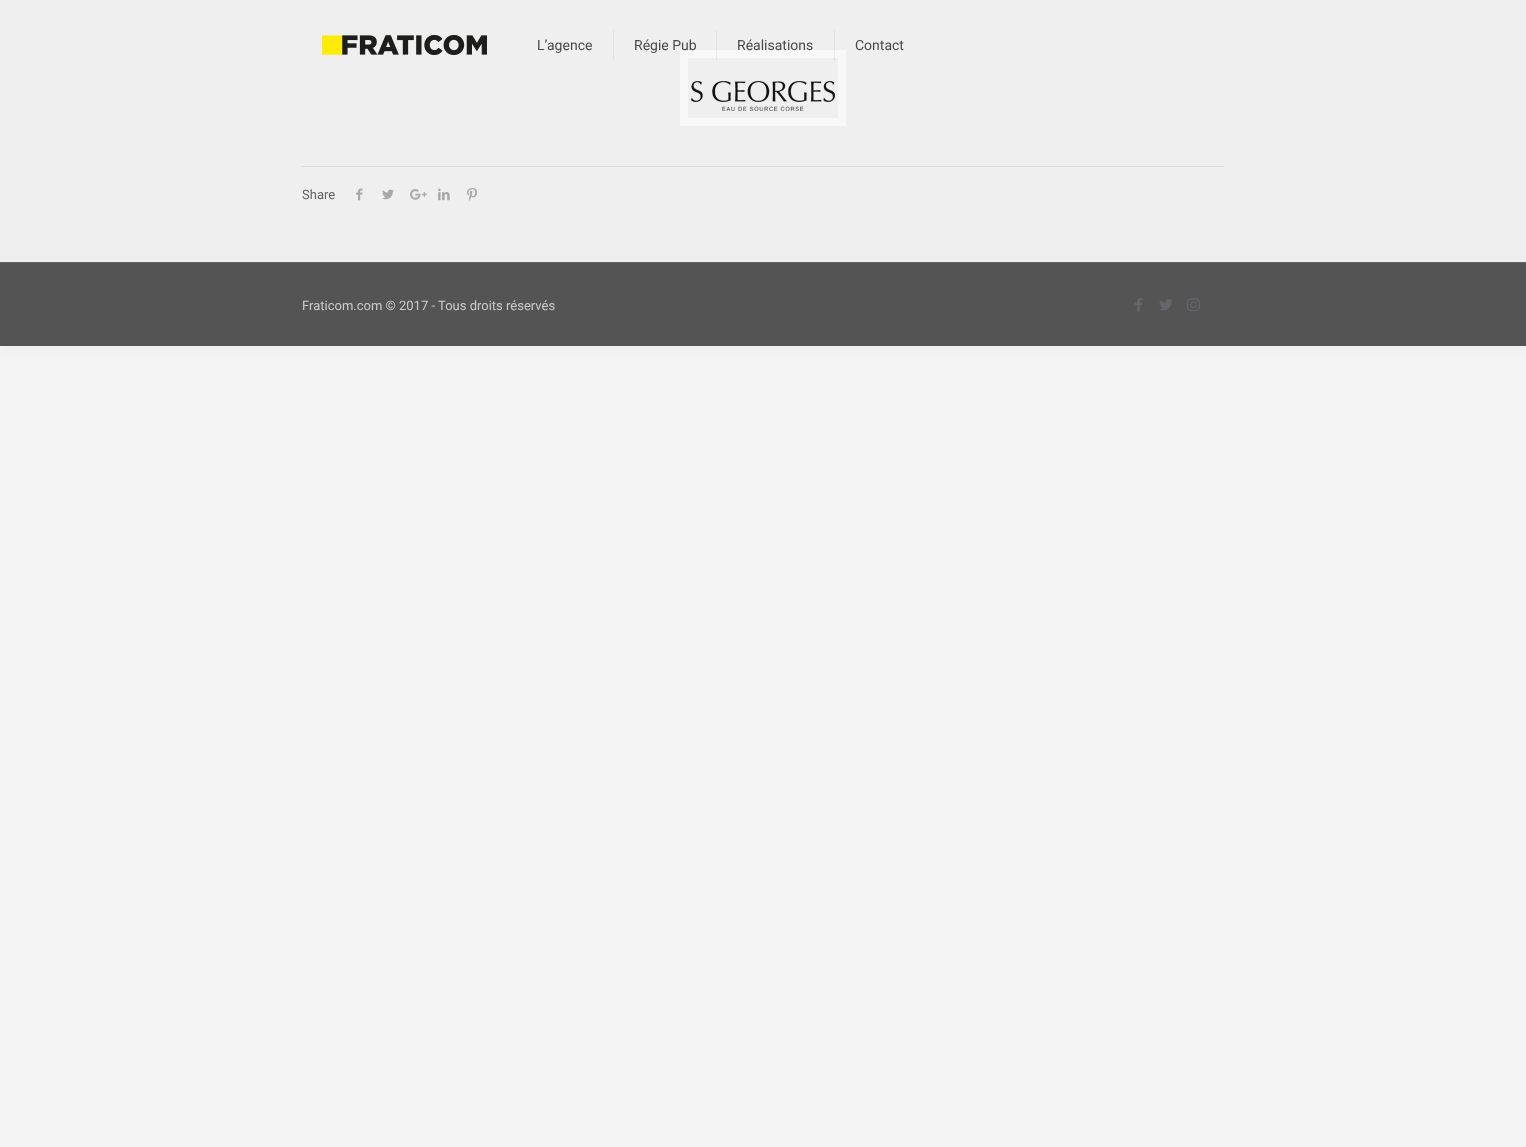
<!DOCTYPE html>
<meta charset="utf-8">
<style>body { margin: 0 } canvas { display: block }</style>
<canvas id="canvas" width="1526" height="1147"></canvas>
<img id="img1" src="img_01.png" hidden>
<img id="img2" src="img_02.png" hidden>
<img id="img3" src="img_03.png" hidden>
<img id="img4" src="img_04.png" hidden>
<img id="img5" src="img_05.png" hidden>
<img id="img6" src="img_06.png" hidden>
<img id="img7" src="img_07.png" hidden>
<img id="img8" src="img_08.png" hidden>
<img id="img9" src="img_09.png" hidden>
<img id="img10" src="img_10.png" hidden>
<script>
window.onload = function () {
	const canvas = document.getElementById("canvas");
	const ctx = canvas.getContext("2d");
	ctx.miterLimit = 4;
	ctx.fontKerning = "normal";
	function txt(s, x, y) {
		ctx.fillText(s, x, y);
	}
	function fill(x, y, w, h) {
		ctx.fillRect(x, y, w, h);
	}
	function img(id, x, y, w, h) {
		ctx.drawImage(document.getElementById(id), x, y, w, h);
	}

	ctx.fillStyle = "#F4F4F4";
	fill(0, 0, 1526, 1147);
	ctx.fillStyle = "rgba(0, 0, 0, 0.06)";
	ctx.filter = "blur(7.5px)";
	ctx.beginPath();
	ctx.rect(0, 0, 1526, 346);
	ctx.fill();
	ctx.filter = "none";
	ctx.fillStyle = "#EFEFEF";
	fill(0, 0, 1526, 262);
	img("img1", 322, 35, 165, 20);
	ctx.fillStyle = "#E3E3E3";
	fill(613, 30, 1, 30);
	ctx.strokeStyle = "#F8F8F8";
	ctx.lineWidth = 8;
	ctx.strokeRect(684, 54, 158, 68);
	ctx.fillStyle = "rgba(0, 0, 0, 0.05)";
	fill(716, 30, 1, 30);
	fill(834, 30, 1, 30);
	img("img2", 691, 81, 144, 30);
	ctx.fillStyle = "#DCDCDC";
	fill(302, 166, 922, 1);
	img("img3", 356, 188, 7, 13);
	img("img4", 382, 189, 12, 11);
	img("img5", 410, 189, 17, 11);
	img("img6", 438, 188, 12, 13);
	img("img7", 467, 188, 11, 13);
	ctx.fillStyle = "#545454";
	fill(0, 263, 1526, 83);
	ctx.fillStyle = "#656565";
	fill(0, 262, 1526, 1);
	img("img8", 1135, 298, 8, 14);
	img("img9", 1159, 299, 14, 12);
	img("img10", 1187, 298, 13, 14);
	ctx.font = "14px Roboto";
	ctx.fillStyle = "#494949";
	txt("L’agence", 537, 50);
	txt("Régie Pub", 634, 50);
	txt("Réalisations", 737, 50);
	txt("Contact", 855, 50);
	ctx.font = "13px Roboto";
	ctx.fillStyle = "#626262";
	txt("Share", 302, 199);
	ctx.fillStyle = "#CCCCCC";
	txt("Fraticom.com © 2017 - Tous droits réservés", 302, 310);
};
</script>
